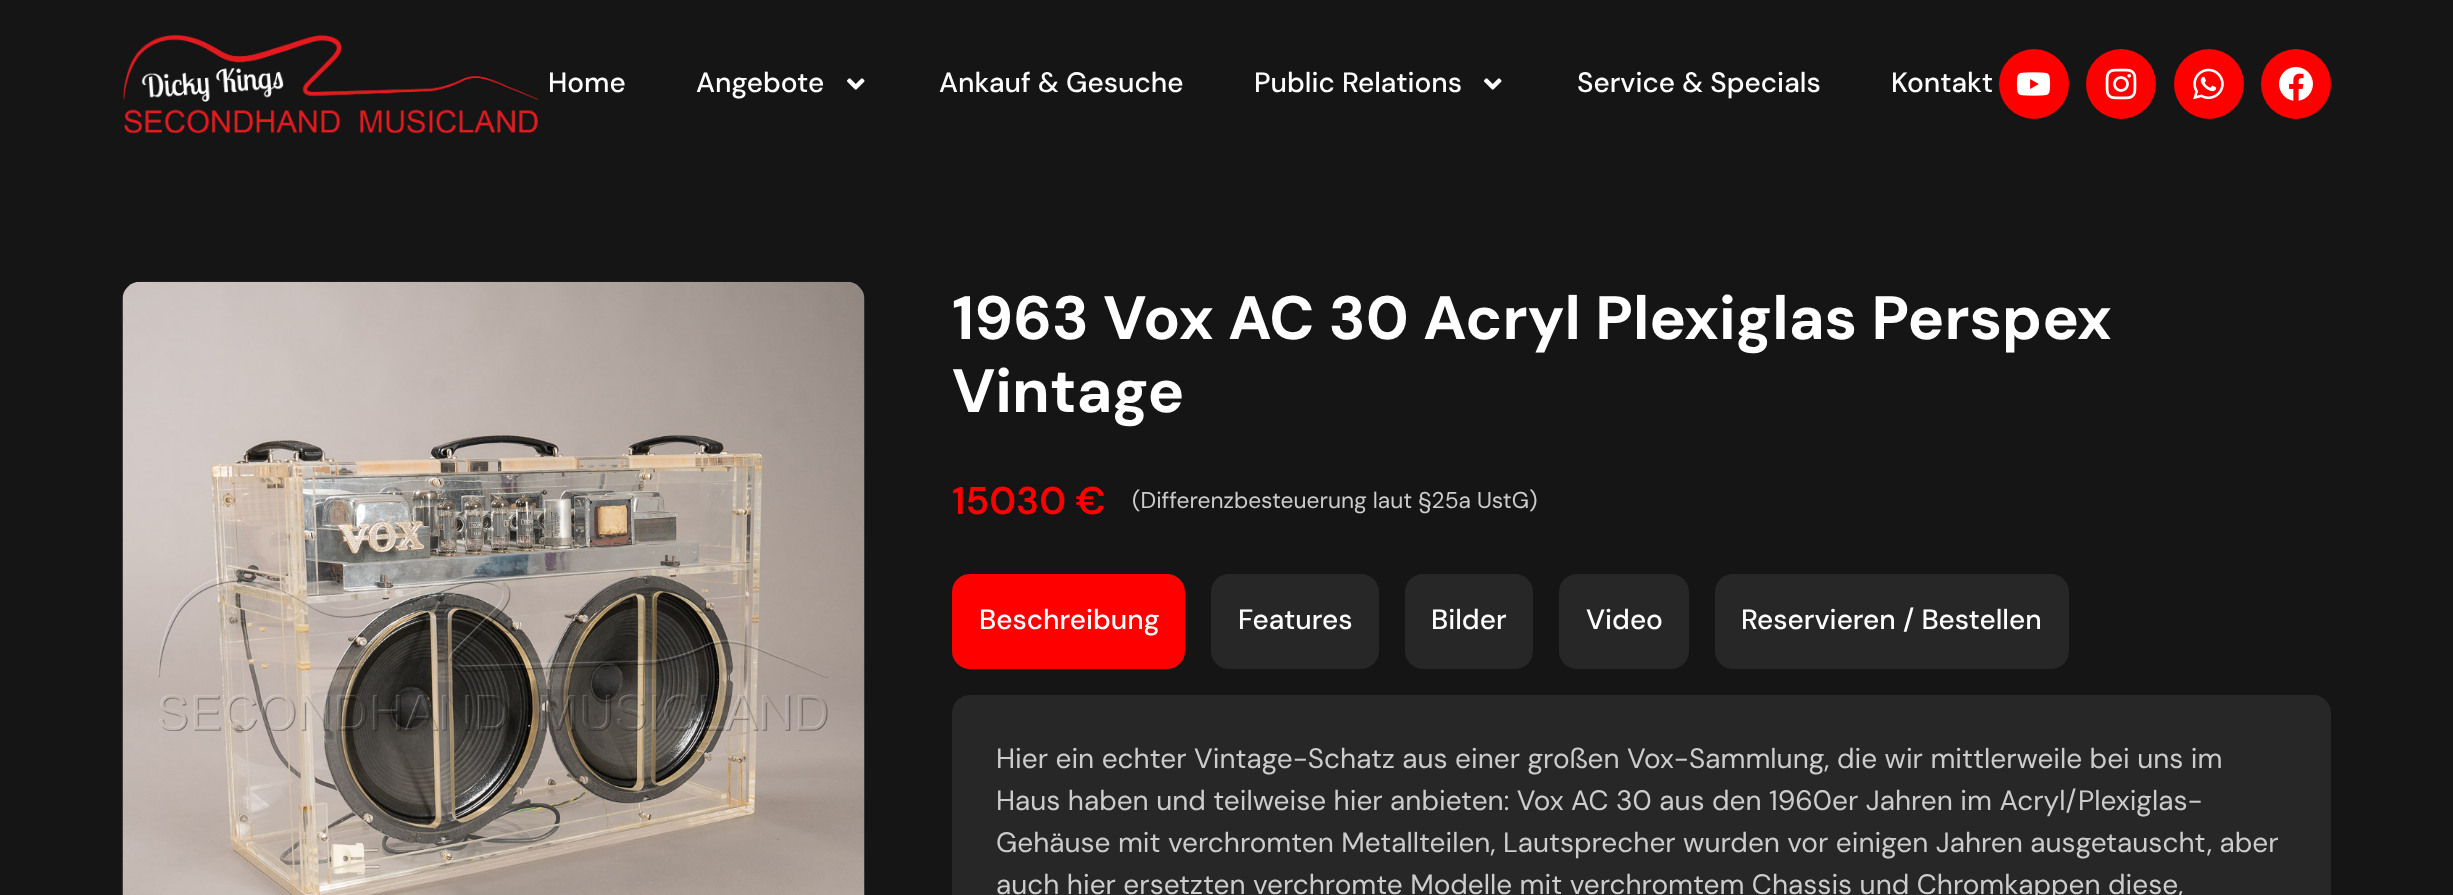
<!DOCTYPE html>
<meta charset="utf-8">
<style>body { margin: 0 } canvas { display: block }</style>
<canvas id="canvas" width="2453" height="895"></canvas>
<img id="img1" src="img_01.png" hidden>
<img id="img2" src="img_02.png" hidden>
<img id="img3" src="img_03.png" hidden>
<img id="img4" src="img_04.png" hidden>
<img id="img5" src="img_05.png" hidden>
<img id="img6" src="img_06.png" hidden>
<img id="img7" src="img_07.png" hidden>
<script>
window.onload = function () {
	const canvas = document.getElementById("canvas");
	const ctx = canvas.getContext("2d");
	ctx.miterLimit = 4;
	ctx.fontKerning = "normal";
	function txt(s, x, y) {
		ctx.fillText(s, x, y);
	}
	function fill(x, y, w, h) {
		ctx.fillRect(x, y, w, h);
	}
	function round(x, y, w, h, r) {
		ctx.beginPath();
		ctx.roundRect(x, y, w, h, r);
		ctx.fill();
	}
	function img(id, x, y, w, h) {
		ctx.drawImage(document.getElementById(id), x, y, w, h);
	}

	ctx.fillStyle = "#151515";
	fill(0, 0, 2453, 895);
	img("img1", 123, 35, 415, 98);
	img("img2", 847, 78, 18, 12);
	img("img2", 1484, 78, 18, 12);
	ctx.fillStyle = "#FE0000";
	ctx.beginPath();
	ctx.arc(2034, 84, 35, 0, Math.PI * 2);
	ctx.fill();
	img("img3", 2016, 72, 35, 24);
	ctx.beginPath();
	ctx.arc(2121, 84, 35, 0, Math.PI * 2);
	ctx.fill();
	img("img4", 2105, 68, 32, 32);
	ctx.beginPath();
	ctx.arc(2209, 84, 35, 0, Math.PI * 2);
	ctx.fill();
	img("img5", 2193, 68, 31, 32);
	ctx.beginPath();
	ctx.arc(2296, 84, 35, 0, Math.PI * 2);
	ctx.fill();
	img("img6", 2279, 67, 34, 34);
	img("img7", 122, 281, 743, 614);
	round(952, 574, 233, 95, 18);
	ctx.fillStyle = "#272727";
	round(1211, 574, 168, 95, 18);
	round(1405, 574, 128, 95, 18);
	round(1559, 574, 130, 95, 18);
	round(1715, 574, 354, 95, 18);
	round(952, 695, 1379, 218, 18);
	ctx.font = "500 28px DM Sans";
	ctx.fillStyle = "#FFFFFF";
	txt("Home", 548, 92);
	txt("Angebote", 696, 92);
	txt("Ankauf & Gesuche", 939, 92);
	txt("Public Relations", 1254, 92);
	txt("Service & Specials", 1577, 92);
	txt("Kontakt", 1891, 92);
	ctx.font = "bold 61.25px DM Sans";
	txt("1963 Vox AC 30 Acryl Plexiglas Perspex", 952, 339);
	txt("Vintage", 952, 412);
	ctx.font = "600 38.5px DM Sans";
	ctx.fillStyle = "#FE0000";
	txt("15030 €", 952, 514);
	ctx.font = "22.75px DM Sans";
	ctx.fillStyle = "#CCCCCC";
	txt("(Differenzbesteuerung laut §25a UstG)", 1132, 508);
	ctx.font = "500 28px DM Sans";
	ctx.fillStyle = "#FFFFFF";
	txt("Beschreibung", 979, 629);
	txt("Features", 1238, 629);
	txt("Bilder", 1431, 629);
	txt("Video", 1586, 629);
	txt("Reservieren / Bestellen", 1741, 629);
	ctx.font = "28px DM Sans";
	ctx.fillStyle = "#CCCCCC";
	txt("Hier ein echter Vintage-Schatz aus einer großen Vox-Sammlung, die wir mittlerweile bei uns im", 996, 768);
	txt("Haus haben und teilweise hier anbieten: Vox AC 30 aus den 1960er Jahren im Acryl/Plexiglas-", 996, 810);
	txt("Gehäuse mit verchromten Metallteilen, Lautsprecher wurden vor einigen Jahren ausgetauscht, aber", 996, 852);
	txt("auch hier ersetzten verchromte Modelle mit verchromtem Chassis und Chromkappen diese,", 996, 894);
};
</script>
